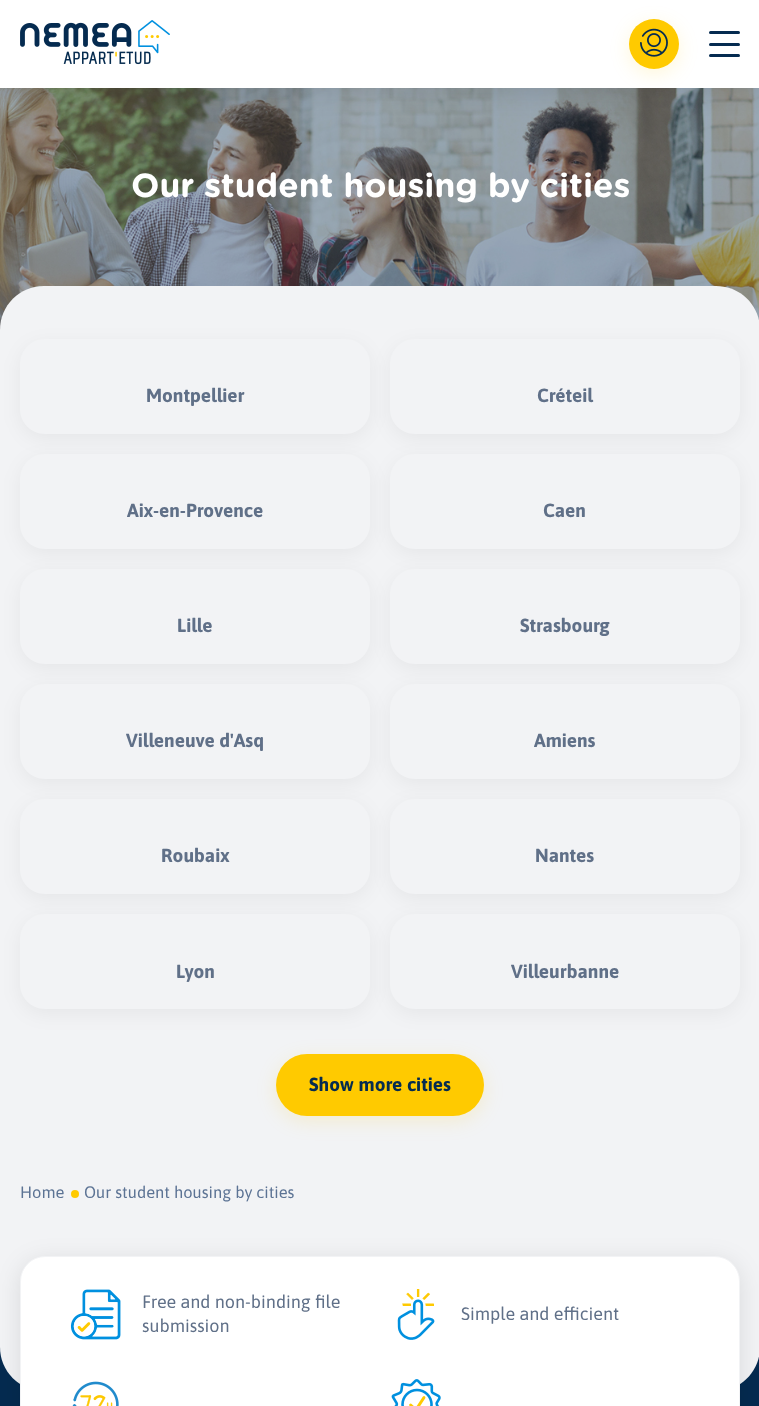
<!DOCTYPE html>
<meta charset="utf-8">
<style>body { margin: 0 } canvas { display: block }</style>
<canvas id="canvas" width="759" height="1406"></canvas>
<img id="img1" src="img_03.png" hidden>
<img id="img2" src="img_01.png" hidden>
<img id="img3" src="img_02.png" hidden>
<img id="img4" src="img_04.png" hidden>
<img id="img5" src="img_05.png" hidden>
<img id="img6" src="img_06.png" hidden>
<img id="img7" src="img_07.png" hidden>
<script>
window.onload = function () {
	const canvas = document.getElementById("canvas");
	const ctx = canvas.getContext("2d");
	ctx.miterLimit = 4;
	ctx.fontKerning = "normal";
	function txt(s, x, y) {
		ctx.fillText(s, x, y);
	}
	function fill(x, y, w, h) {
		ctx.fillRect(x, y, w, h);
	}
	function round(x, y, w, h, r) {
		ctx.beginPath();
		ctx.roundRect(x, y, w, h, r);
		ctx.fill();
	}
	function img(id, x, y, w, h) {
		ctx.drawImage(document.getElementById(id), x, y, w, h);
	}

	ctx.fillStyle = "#052B50";
	fill(0, 0, 759, 1406);
	ctx.fillStyle = "#F2F3F5";
	ctx.beginPath();
	ctx.moveTo(0, 88);
	ctx.lineTo(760, 88);
	ctx.lineTo(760, 1347);
	ctx.bezierCurveTo(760, 1371.5, 740.5, 1391, 716, 1391);
	ctx.lineTo(44, 1391);
	ctx.bezierCurveTo(19.5, 1391, 0, 1371.5, 0, 1347);
	ctx.closePath();
	ctx.fill();
	img("img1", 0, 88, 759, 242);
	ctx.fillStyle = "rgba(0, 0, 0, 0.1)";
	ctx.filter = "blur(12.5px)";
	ctx.beginPath();
	ctx.rect(0, 5, 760, 88);
	ctx.fill();
	ctx.filter = "none";
	ctx.fillStyle = "#FFFFFF";
	fill(0, 0, 759, 88);
	img("img2", 20, 20, 150, 45);
	ctx.fillStyle = "rgba(255, 202, 0, 0.15)";
	ctx.filter = "blur(9.5px)";
	ctx.beginPath();
	ctx.roundRect(629, 24, 50, 50, 25);
	ctx.fill();
	ctx.filter = "none";
	ctx.fillStyle = "#FFCA00";
	ctx.beginPath();
	ctx.arc(654, 44, 25, 0, Math.PI * 2);
	ctx.fill();
	img("img3", 640, 28, 28, 29);
	ctx.fillStyle = "#052B50";
	round(709, 31, 31, 3, 1.5);
	round(709, 43, 31, 3, 1.5);
	round(709, 54, 31, 3, 1.5);
	ctx.fillStyle = "#F2F3F5";
	ctx.beginPath();
	ctx.moveTo(44, 286);
	ctx.lineTo(716, 286);
	ctx.bezierCurveTo(740.5, 286, 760, 305.5, 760, 330);
	ctx.lineTo(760, 1155);
	ctx.lineTo(0, 1155);
	ctx.lineTo(0, 330);
	ctx.bezierCurveTo(0, 305.5, 19.5, 286, 44, 286);
	ctx.closePath();
	ctx.fill();
	ctx.fillStyle = "rgba(0, 0, 0, 0.05)";
	ctx.filter = "blur(9.5px)";
	ctx.beginPath();
	ctx.roundRect(20, 344, 350, 95, 25);
	ctx.fill();
	ctx.filter = "none";
	ctx.fillStyle = "#F2F3F5";
	ctx.beginPath();
	ctx.moveTo(45, 339);
	ctx.lineTo(345, 339);
	ctx.bezierCurveTo(359, 339, 370, 350, 370, 364);
	ctx.lineTo(370, 409);
	ctx.bezierCurveTo(370, 423, 359, 434, 345, 434);
	ctx.lineTo(45, 434);
	ctx.bezierCurveTo(31, 434, 20, 423, 20, 409);
	ctx.lineTo(20, 364);
	ctx.bezierCurveTo(20, 350, 31, 339, 45, 339);
	ctx.closePath();
	ctx.fill();
	ctx.fillStyle = "rgba(0, 0, 0, 0.05)";
	ctx.filter = "blur(9.5px)";
	ctx.beginPath();
	ctx.roundRect(390, 344, 350, 95, 25);
	ctx.fill();
	ctx.filter = "none";
	ctx.fillStyle = "#F2F3F5";
	ctx.beginPath();
	ctx.moveTo(415, 339);
	ctx.lineTo(715, 339);
	ctx.bezierCurveTo(729, 339, 740, 350, 740, 364);
	ctx.lineTo(740, 409);
	ctx.bezierCurveTo(740, 423, 729, 434, 715, 434);
	ctx.lineTo(415, 434);
	ctx.bezierCurveTo(401, 434, 390, 423, 390, 409);
	ctx.lineTo(390, 364);
	ctx.bezierCurveTo(390, 350, 401, 339, 415, 339);
	ctx.closePath();
	ctx.fill();
	ctx.fillStyle = "rgba(0, 0, 0, 0.05)";
	ctx.filter = "blur(9.5px)";
	ctx.beginPath();
	ctx.roundRect(20, 459, 350, 95, 25);
	ctx.fill();
	ctx.filter = "none";
	ctx.fillStyle = "#F2F3F5";
	ctx.beginPath();
	ctx.moveTo(45, 454);
	ctx.lineTo(345, 454);
	ctx.bezierCurveTo(359, 454, 370, 465, 370, 479);
	ctx.lineTo(370, 524);
	ctx.bezierCurveTo(370, 538, 359, 549, 345, 549);
	ctx.lineTo(45, 549);
	ctx.bezierCurveTo(31, 549, 20, 538, 20, 524);
	ctx.lineTo(20, 479);
	ctx.bezierCurveTo(20, 465, 31, 454, 45, 454);
	ctx.closePath();
	ctx.fill();
	ctx.fillStyle = "rgba(0, 0, 0, 0.05)";
	ctx.filter = "blur(9.5px)";
	ctx.beginPath();
	ctx.roundRect(390, 459, 350, 95, 25);
	ctx.fill();
	ctx.filter = "none";
	ctx.fillStyle = "#F2F3F5";
	ctx.beginPath();
	ctx.moveTo(415, 454);
	ctx.lineTo(715, 454);
	ctx.bezierCurveTo(729, 454, 740, 465, 740, 479);
	ctx.lineTo(740, 524);
	ctx.bezierCurveTo(740, 538, 729, 549, 715, 549);
	ctx.lineTo(415, 549);
	ctx.bezierCurveTo(401, 549, 390, 538, 390, 524);
	ctx.lineTo(390, 479);
	ctx.bezierCurveTo(390, 465, 401, 454, 415, 454);
	ctx.closePath();
	ctx.fill();
	ctx.fillStyle = "rgba(0, 0, 0, 0.05)";
	ctx.filter = "blur(9.5px)";
	ctx.beginPath();
	ctx.roundRect(20, 574, 350, 95, 25);
	ctx.fill();
	ctx.filter = "none";
	ctx.fillStyle = "#F2F3F5";
	ctx.beginPath();
	ctx.moveTo(45, 569);
	ctx.lineTo(345, 569);
	ctx.bezierCurveTo(359, 569, 370, 580, 370, 594);
	ctx.lineTo(370, 639);
	ctx.bezierCurveTo(370, 653, 359, 664, 345, 664);
	ctx.lineTo(45, 664);
	ctx.bezierCurveTo(31, 664, 20, 653, 20, 639);
	ctx.lineTo(20, 594);
	ctx.bezierCurveTo(20, 580, 31, 569, 45, 569);
	ctx.closePath();
	ctx.fill();
	ctx.fillStyle = "rgba(0, 0, 0, 0.05)";
	ctx.filter = "blur(9.5px)";
	ctx.beginPath();
	ctx.roundRect(390, 574, 350, 95, 25);
	ctx.fill();
	ctx.filter = "none";
	ctx.fillStyle = "#F2F3F5";
	ctx.beginPath();
	ctx.moveTo(415, 569);
	ctx.lineTo(715, 569);
	ctx.bezierCurveTo(729, 569, 740, 580, 740, 594);
	ctx.lineTo(740, 639);
	ctx.bezierCurveTo(740, 653, 729, 664, 715, 664);
	ctx.lineTo(415, 664);
	ctx.bezierCurveTo(401, 664, 390, 653, 390, 639);
	ctx.lineTo(390, 594);
	ctx.bezierCurveTo(390, 580, 401, 569, 415, 569);
	ctx.closePath();
	ctx.fill();
	ctx.fillStyle = "rgba(0, 0, 0, 0.05)";
	ctx.filter = "blur(9.5px)";
	ctx.beginPath();
	ctx.roundRect(20, 689, 350, 95, 25);
	ctx.fill();
	ctx.filter = "none";
	ctx.fillStyle = "#F2F3F5";
	ctx.beginPath();
	ctx.moveTo(45, 684);
	ctx.lineTo(345, 684);
	ctx.bezierCurveTo(359, 684, 370, 695, 370, 709);
	ctx.lineTo(370, 754);
	ctx.bezierCurveTo(370, 768, 359, 779, 345, 779);
	ctx.lineTo(45, 779);
	ctx.bezierCurveTo(31, 779, 20, 768, 20, 754);
	ctx.lineTo(20, 709);
	ctx.bezierCurveTo(20, 695, 31, 684, 45, 684);
	ctx.closePath();
	ctx.fill();
	ctx.fillStyle = "rgba(0, 0, 0, 0.05)";
	ctx.filter = "blur(9.5px)";
	ctx.beginPath();
	ctx.roundRect(390, 689, 350, 95, 25);
	ctx.fill();
	ctx.filter = "none";
	ctx.fillStyle = "#F2F3F5";
	ctx.beginPath();
	ctx.moveTo(415, 684);
	ctx.lineTo(715, 684);
	ctx.bezierCurveTo(729, 684, 740, 695, 740, 709);
	ctx.lineTo(740, 754);
	ctx.bezierCurveTo(740, 768, 729, 779, 715, 779);
	ctx.lineTo(415, 779);
	ctx.bezierCurveTo(401, 779, 390, 768, 390, 754);
	ctx.lineTo(390, 709);
	ctx.bezierCurveTo(390, 695, 401, 684, 415, 684);
	ctx.closePath();
	ctx.fill();
	ctx.fillStyle = "rgba(0, 0, 0, 0.05)";
	ctx.filter = "blur(9.5px)";
	ctx.beginPath();
	ctx.roundRect(20, 804, 350, 95, 25);
	ctx.fill();
	ctx.filter = "none";
	ctx.fillStyle = "#F2F3F5";
	ctx.beginPath();
	ctx.moveTo(45, 799);
	ctx.lineTo(345, 799);
	ctx.bezierCurveTo(359, 799, 370, 810, 370, 824);
	ctx.lineTo(370, 869);
	ctx.bezierCurveTo(370, 883, 359, 894, 345, 894);
	ctx.lineTo(45, 894);
	ctx.bezierCurveTo(31, 894, 20, 883, 20, 869);
	ctx.lineTo(20, 824);
	ctx.bezierCurveTo(20, 810, 31, 799, 45, 799);
	ctx.closePath();
	ctx.fill();
	ctx.fillStyle = "rgba(0, 0, 0, 0.05)";
	ctx.filter = "blur(9.5px)";
	ctx.beginPath();
	ctx.roundRect(390, 804, 350, 95, 25);
	ctx.fill();
	ctx.filter = "none";
	ctx.fillStyle = "#F2F3F5";
	ctx.beginPath();
	ctx.moveTo(415, 799);
	ctx.lineTo(715, 799);
	ctx.bezierCurveTo(729, 799, 740, 810, 740, 824);
	ctx.lineTo(740, 869);
	ctx.bezierCurveTo(740, 883, 729, 894, 715, 894);
	ctx.lineTo(415, 894);
	ctx.bezierCurveTo(401, 894, 390, 883, 390, 869);
	ctx.lineTo(390, 824);
	ctx.bezierCurveTo(390, 810, 401, 799, 415, 799);
	ctx.closePath();
	ctx.fill();
	ctx.fillStyle = "rgba(0, 0, 0, 0.05)";
	ctx.filter = "blur(9.5px)";
	ctx.beginPath();
	ctx.roundRect(20, 919, 350, 95, 25);
	ctx.fill();
	ctx.filter = "none";
	ctx.fillStyle = "#F2F3F5";
	ctx.beginPath();
	ctx.moveTo(45, 914);
	ctx.lineTo(345, 914);
	ctx.bezierCurveTo(359, 914, 370, 925, 370, 939);
	ctx.lineTo(370, 984);
	ctx.bezierCurveTo(370, 998, 359, 1009, 345, 1009);
	ctx.lineTo(45, 1009);
	ctx.bezierCurveTo(31, 1009, 20, 998, 20, 984);
	ctx.lineTo(20, 939);
	ctx.bezierCurveTo(20, 925, 31, 914, 45, 914);
	ctx.closePath();
	ctx.fill();
	ctx.fillStyle = "rgba(0, 0, 0, 0.05)";
	ctx.filter = "blur(9.5px)";
	ctx.beginPath();
	ctx.roundRect(390, 919, 350, 95, 25);
	ctx.fill();
	ctx.filter = "none";
	ctx.fillStyle = "#F2F3F5";
	ctx.beginPath();
	ctx.moveTo(415, 914);
	ctx.lineTo(715, 914);
	ctx.bezierCurveTo(729, 914, 740, 925, 740, 939);
	ctx.lineTo(740, 984);
	ctx.bezierCurveTo(740, 998, 729, 1009, 715, 1009);
	ctx.lineTo(415, 1009);
	ctx.bezierCurveTo(401, 1009, 390, 998, 390, 984);
	ctx.lineTo(390, 939);
	ctx.bezierCurveTo(390, 925, 401, 914, 415, 914);
	ctx.closePath();
	ctx.fill();
	ctx.fillStyle = "rgba(255, 202, 0, 0.15)";
	ctx.filter = "blur(9.5px)";
	ctx.beginPath();
	ctx.roundRect(276, 1059, 208, 62, 31);
	ctx.fill();
	ctx.filter = "none";
	ctx.fillStyle = "#FFCA00";
	round(276, 1054, 208, 62, 31);
	ctx.beginPath();
	ctx.arc(75, 1194, 4, 0, Math.PI * 2);
	ctx.fill();
	ctx.fillStyle = "rgba(0, 0, 0, 0.1)";
	ctx.filter = "blur(12.5px)";
	ctx.beginPath();
	ctx.roundRect(20, 1261, 720, 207, 25);
	ctx.fill();
	ctx.filter = "none";
	ctx.fillStyle = "#FFFFFF";
	ctx.beginPath();
	ctx.roundRect(20.5, 1256.5, 719, 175, 24.5);
	ctx.fill();
	ctx.strokeStyle = "#F2F3F5";
	ctx.stroke();
	img("img4", 70, 1289, 51, 51);
	img("img5", 397, 1289, 38, 51);
	img("img6", 72, 1381, 47, 25);
	img("img7", 391, 1379, 50, 27);
	ctx.font = "bold 33.5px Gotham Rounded";
	txt("Our student housing by cities", 131, 197);
	ctx.font = "bold 19px Asap";
	ctx.fillStyle = "#607088";
	txt("Montpellier", 146, 402);
	txt("Créteil", 537, 402);
	txt("Aix-en-Provence", 127, 517);
	txt("Caen", 543, 517);
	txt("Lille", 177, 632);
	txt("Strasbourg", 520, 632);
	txt("Villeneuve d'Asq", 126, 747);
	txt("Amiens", 534, 747);
	txt("Roubaix", 161, 862);
	txt("Nantes", 535, 862);
	txt("Lyon", 176, 978);
	txt("Villeurbanne", 511, 978);
	ctx.fillStyle = "#052B50";
	txt("Show more cities", 309, 1091);
	ctx.font = "16.5px Asap";
	ctx.fillStyle = "#5C7394";
	txt("Home", 20, 1198);
	txt("Our student housing by cities", 84, 1198);
	ctx.font = "18px Asap";
	ctx.fillStyle = "#607088";
	txt("Free and non-binding file", 142, 1308);
	txt("submission", 142, 1332);
	txt("Simple and efficient", 461, 1320);
};
</script>
